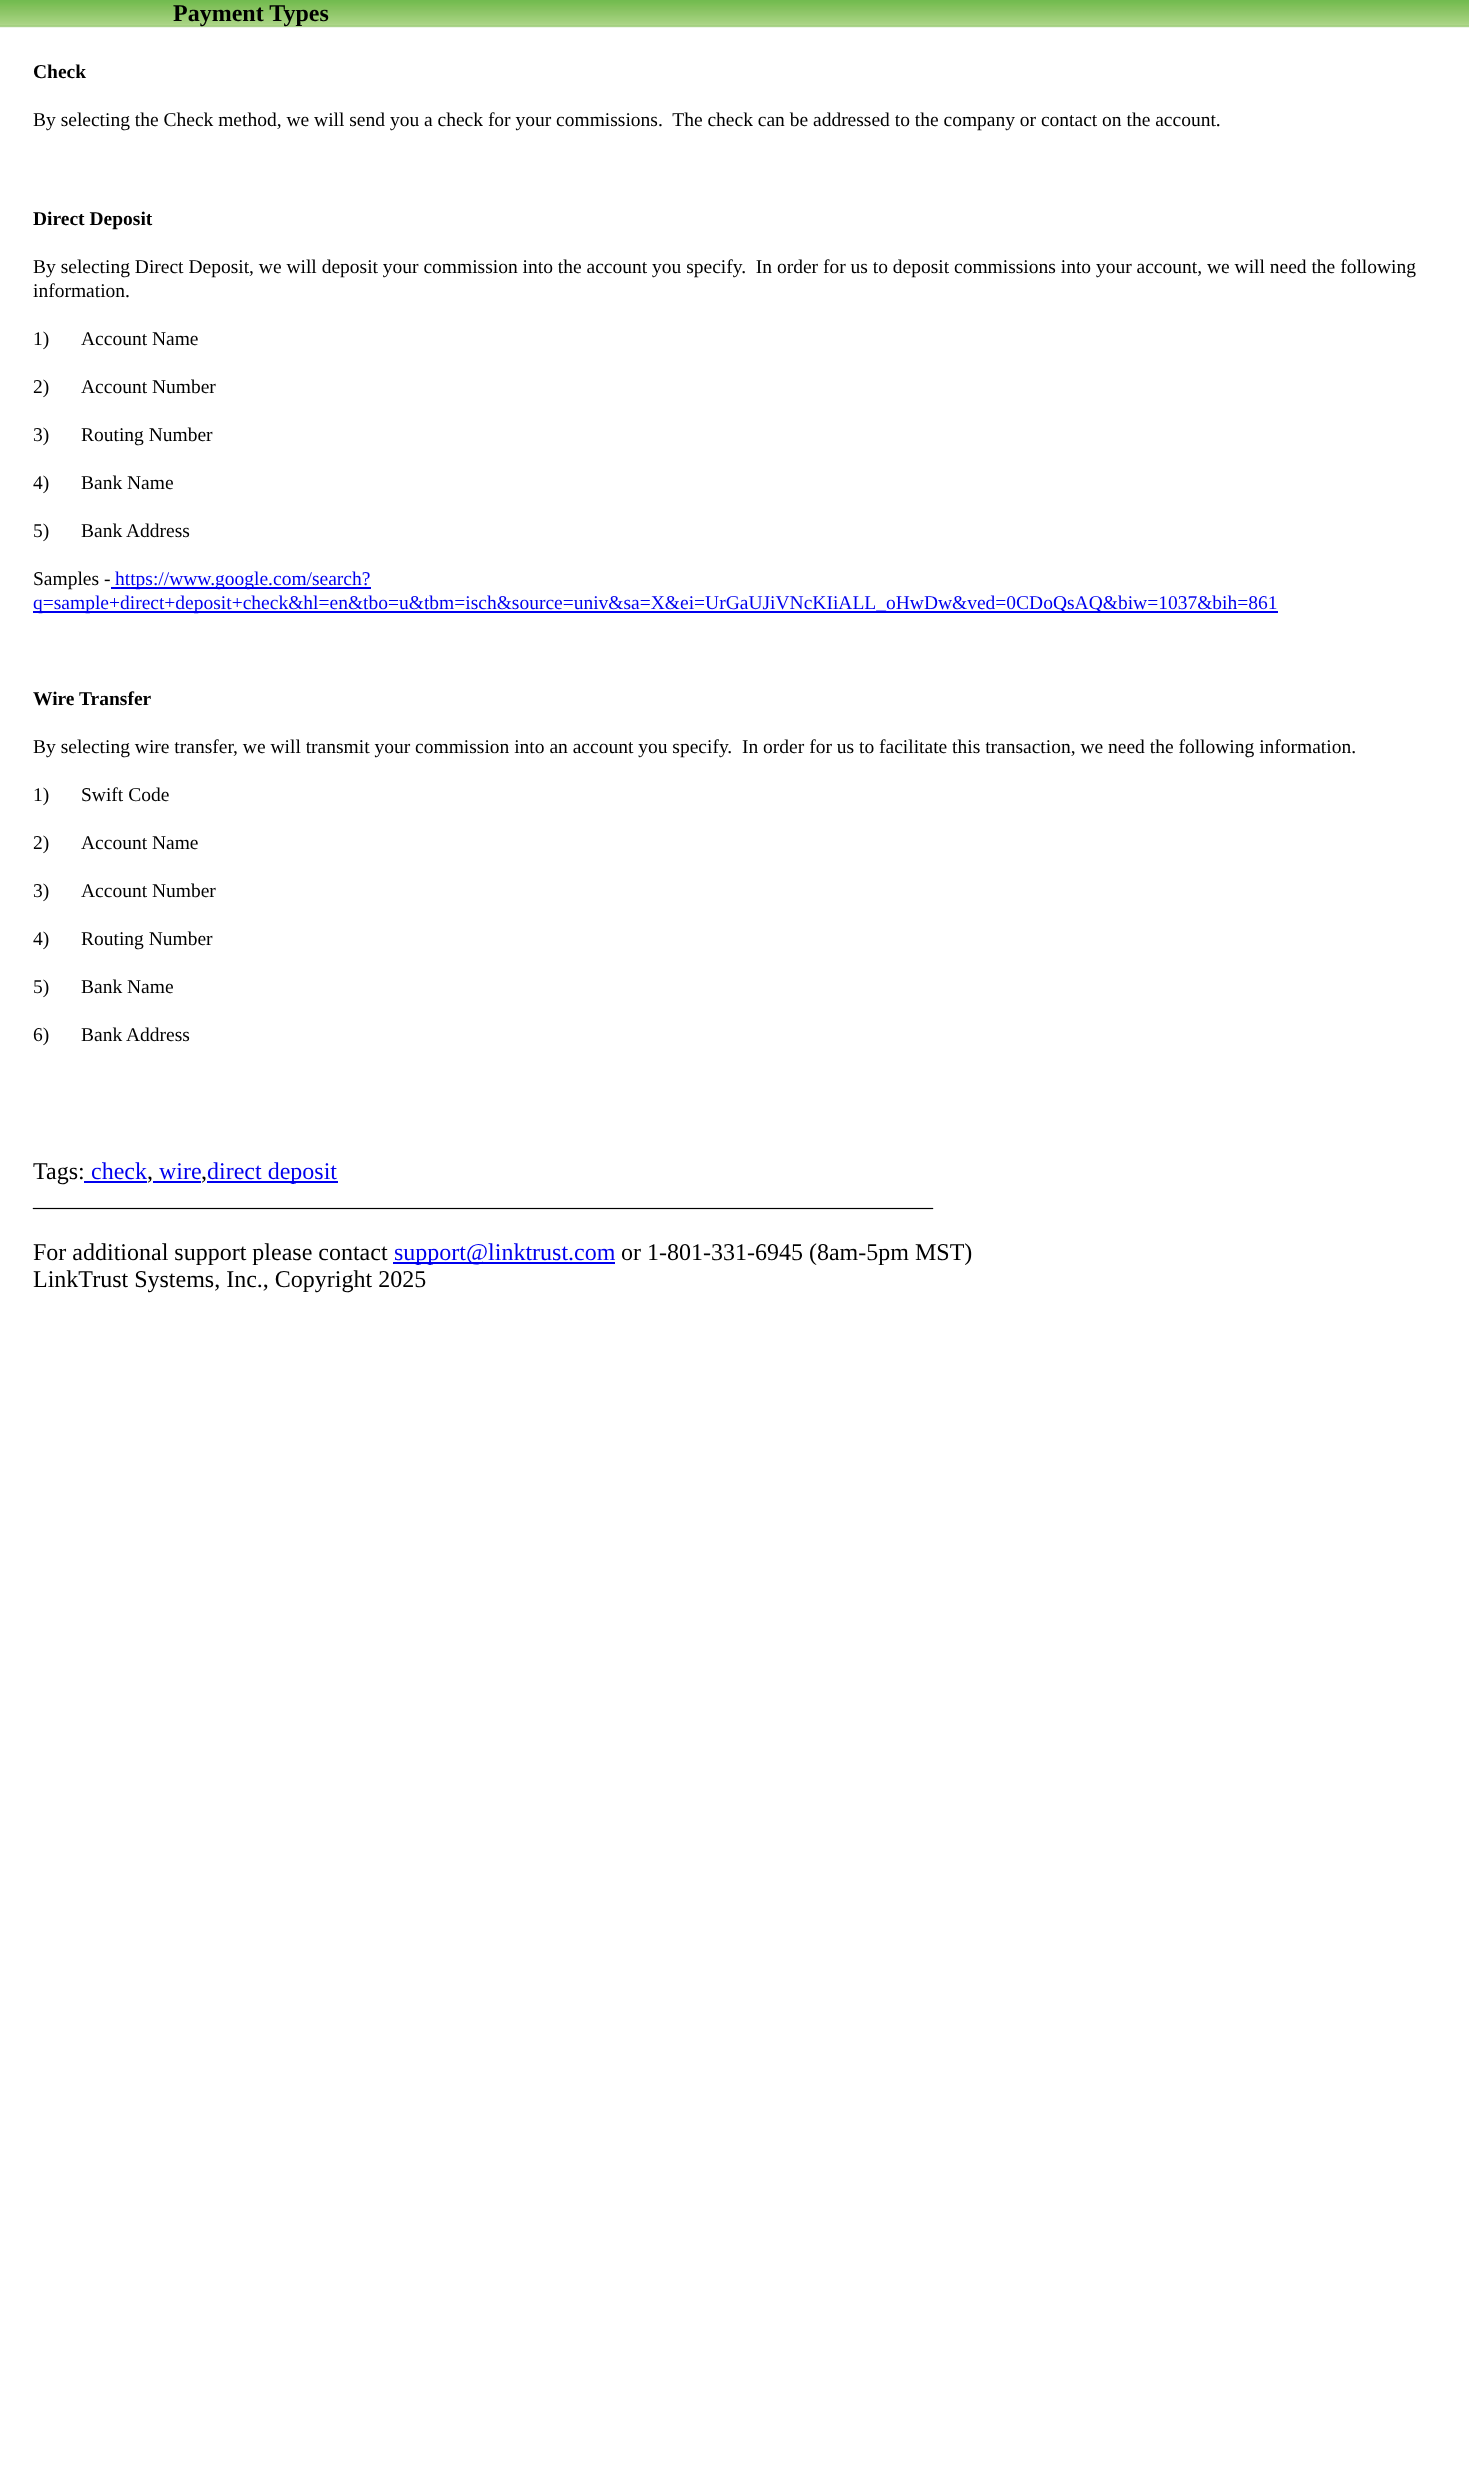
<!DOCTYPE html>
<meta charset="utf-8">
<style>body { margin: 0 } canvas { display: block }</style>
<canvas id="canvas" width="1469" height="2474"></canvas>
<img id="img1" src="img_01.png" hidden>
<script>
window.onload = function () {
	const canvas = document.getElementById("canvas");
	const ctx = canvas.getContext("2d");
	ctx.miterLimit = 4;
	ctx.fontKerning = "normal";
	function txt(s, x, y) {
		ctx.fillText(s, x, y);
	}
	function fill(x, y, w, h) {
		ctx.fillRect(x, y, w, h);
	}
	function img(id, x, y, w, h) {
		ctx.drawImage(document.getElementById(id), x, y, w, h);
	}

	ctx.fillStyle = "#FFFFFF";
	fill(0, 0, 1469, 2474);
	img("img1", 0, 0, 1469, 28);
	ctx.fillStyle = "#0000EE";
	fill(111, 587, 260, 2);
	fill(33, 611, 1245, 2);
	fill(84, 1181, 63, 2);
	fill(153, 1181, 48, 2);
	fill(207, 1181, 131, 2);
	fill(393, 1262, 222, 2);
	ctx.font = "bold 24px Liberation Serif";
	ctx.fillStyle = "#000000";
	txt("Payment Types", 173, 21);
	ctx.font = "bold 19.5px Liberation Serif";
	txt("Check", 33, 78);
	ctx.font = "19.5px Liberation Serif";
	txt("By selecting the Check method, we will send you a check for your commissions.  The check can be addressed to the company or contact on the account.", 33, 126);
	ctx.font = "bold 19.5px Liberation Serif";
	txt("Direct Deposit", 33, 225);
	ctx.font = "19.5px Liberation Serif";
	txt("By selecting Direct Deposit, we will deposit your commission into the account you specify.  In order for us to deposit commissions into your account, we will need the following", 33, 273);
	txt("information.", 33, 297);
	txt("1)", 33, 345);
	txt("Account Name", 81, 345);
	txt("2)", 33, 393);
	txt("Account Number", 81, 393);
	txt("3)", 33, 441);
	txt("Routing Number", 81, 441);
	txt("4)", 33, 489);
	txt("Bank Name", 81, 489);
	txt("5)", 33, 537);
	txt("Bank Address", 81, 537);
	txt("Samples -", 33, 585);
	ctx.fillStyle = "#0000EE";
	txt("https://www.google.com/search?", 115, 585);
	txt("q=sample+direct+deposit+check&hl=en&tbo=u&tbm=isch&source=univ&sa=X&ei=UrGaUJiVNcKIiALL_oHwDw&ved=0CDoQsAQ&biw=1037&bih=861", 33, 609);
	ctx.font = "bold 19.5px Liberation Serif";
	ctx.fillStyle = "#000000";
	txt("Wire Transfer", 33, 705);
	ctx.font = "19.5px Liberation Serif";
	txt("By selecting wire transfer, we will transmit your commission into an account you specify.  In order for us to facilitate this transaction, we need the following information.", 33, 753);
	txt("1)", 33, 801);
	txt("Swift Code", 81, 801);
	txt("2)", 33, 849);
	txt("Account Name", 81, 849);
	txt("3)", 33, 897);
	txt("Account Number", 81, 897);
	txt("4)", 33, 945);
	txt("Routing Number", 81, 945);
	txt("5)", 33, 993);
	txt("Bank Name", 81, 993);
	txt("6)", 33, 1041);
	txt("Bank Address", 81, 1041);
	ctx.font = "24px Liberation Serif";
	txt("Tags:", 33, 1179);
	ctx.fillStyle = "#0000EE";
	txt("check", 91, 1179);
	ctx.fillStyle = "#000000";
	txt(",", 147, 1179);
	ctx.fillStyle = "#0000EE";
	txt("wire", 159, 1179);
	ctx.fillStyle = "#000000";
	txt(",", 201, 1179);
	ctx.fillStyle = "#0000EE";
	txt("direct deposit", 207, 1179);
	ctx.fillStyle = "#000000";
	txt("___________________________________________________________________________", 33, 1206);
	txt("For additional support please contact", 33, 1260);
	ctx.fillStyle = "#0000EE";
	txt("support@linktrust.com", 394, 1260);
	ctx.fillStyle = "#000000";
	txt("or 1-801-331-6945 (8am-5pm MST)", 621, 1260);
	txt("LinkTrust Systems, Inc., Copyright 2025", 33, 1287);
};
</script>
